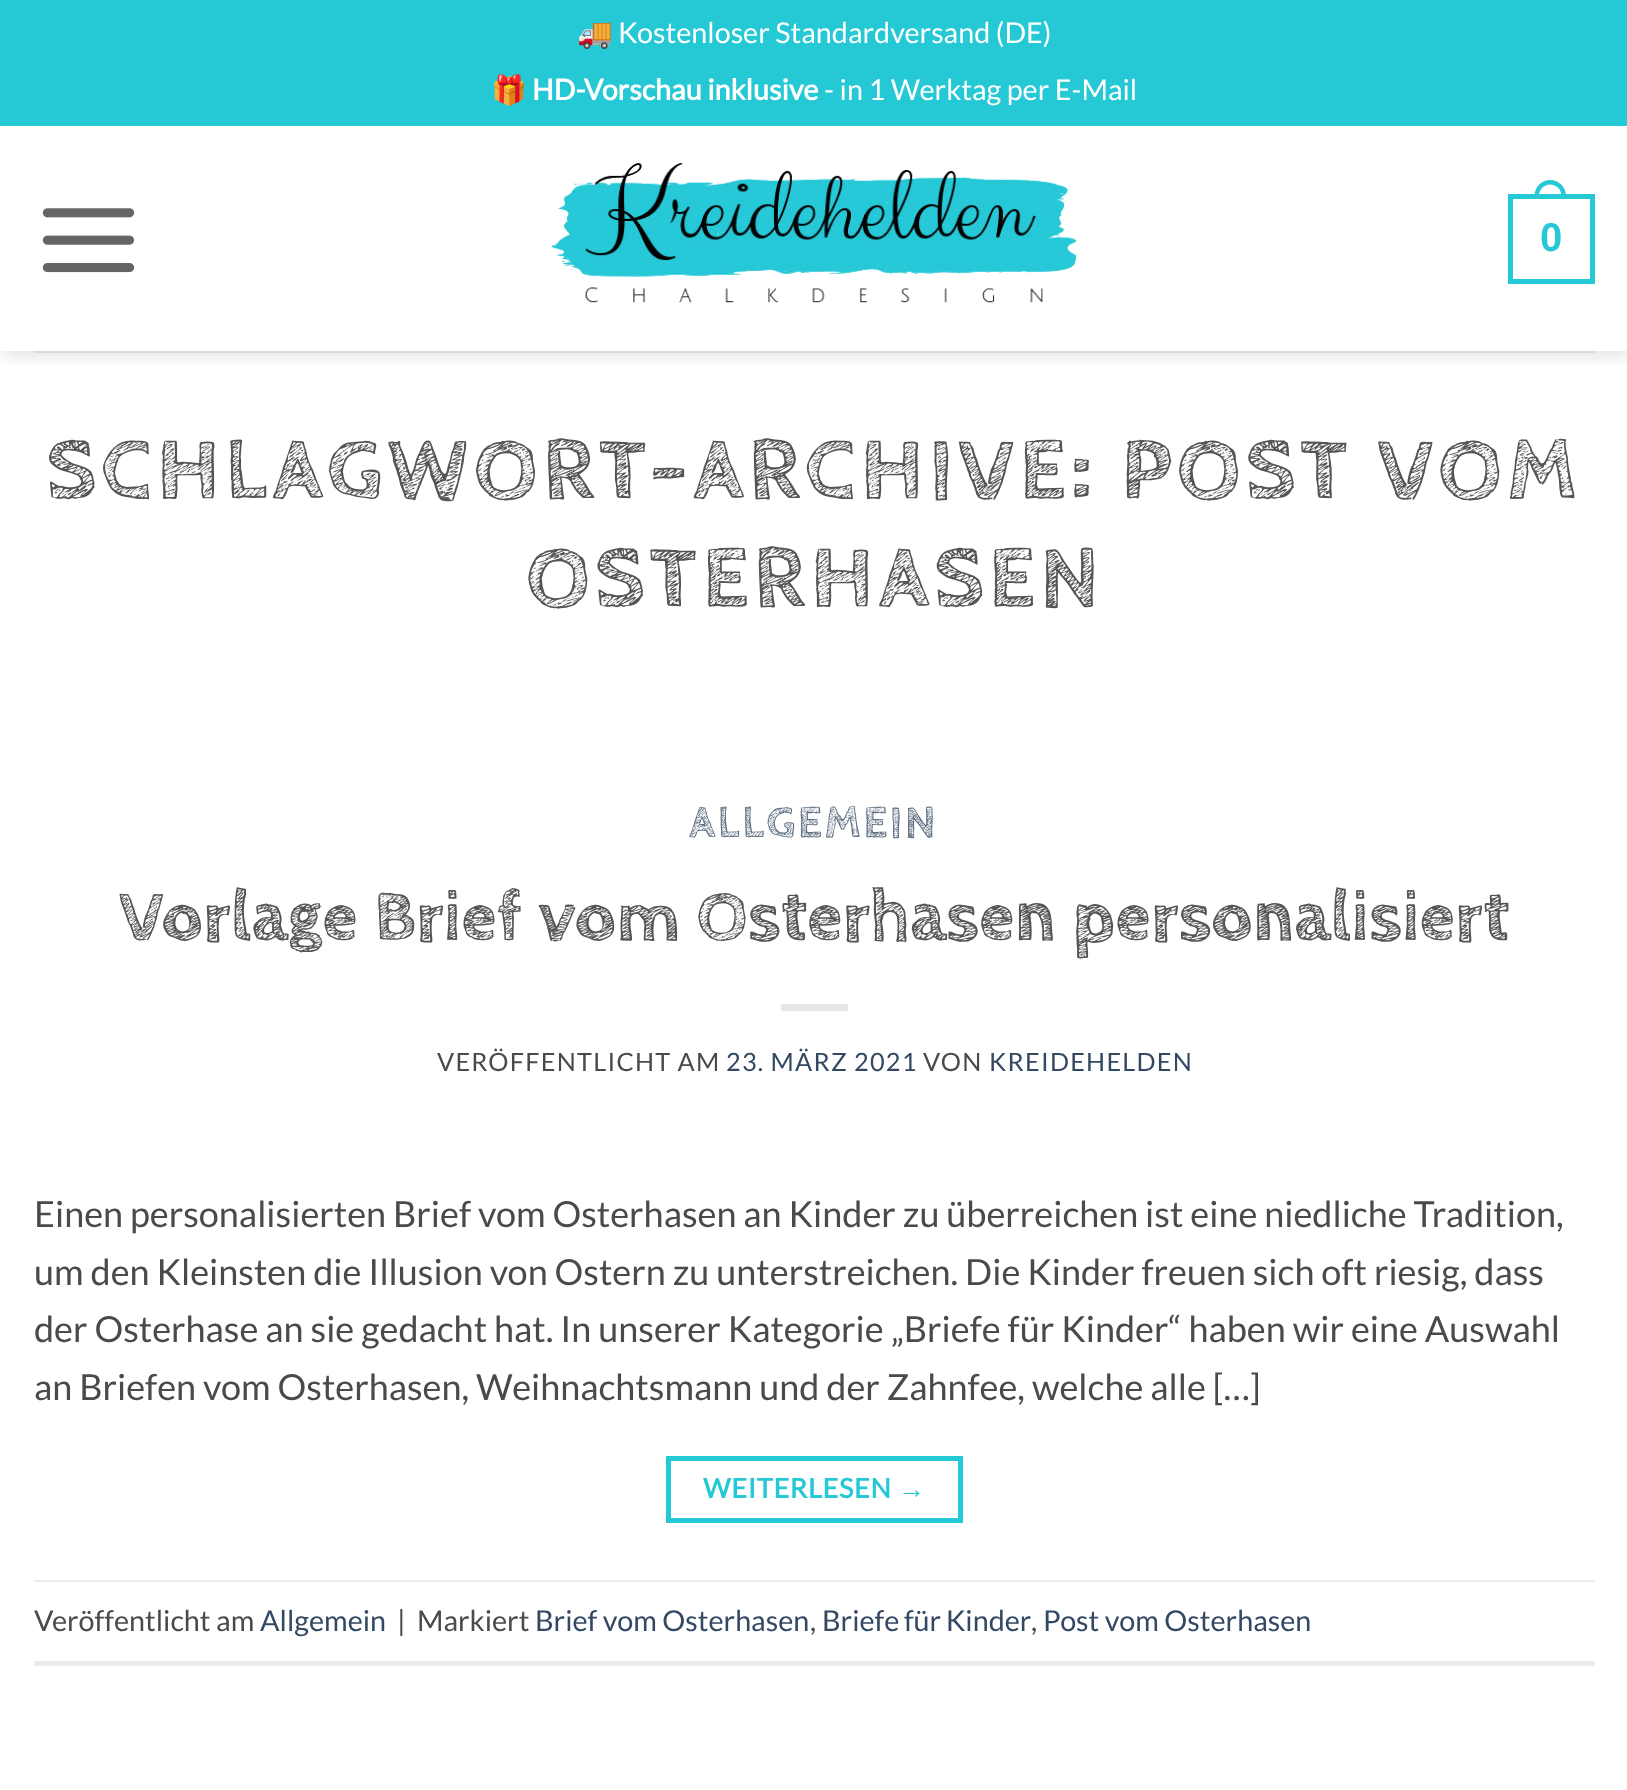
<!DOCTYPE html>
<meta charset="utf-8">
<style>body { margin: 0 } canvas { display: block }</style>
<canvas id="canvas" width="1627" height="1790"></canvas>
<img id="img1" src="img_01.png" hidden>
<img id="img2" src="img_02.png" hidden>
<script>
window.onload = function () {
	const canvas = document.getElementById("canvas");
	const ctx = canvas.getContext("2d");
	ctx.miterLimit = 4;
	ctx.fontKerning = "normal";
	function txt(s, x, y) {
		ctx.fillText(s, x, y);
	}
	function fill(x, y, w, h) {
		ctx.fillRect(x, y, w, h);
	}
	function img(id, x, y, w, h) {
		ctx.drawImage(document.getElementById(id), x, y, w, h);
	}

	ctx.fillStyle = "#FFFFFF";
	fill(0, 0, 1627, 1790);
	ctx.save();
	ctx.beginPath();
	ctx.rect(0, 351, 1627, 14);
	ctx.clip();
	ctx.fillStyle = "rgba(0, 0, 0, 0.15)";
	ctx.filter = "blur(11px)";
	ctx.beginPath();
	ctx.rect(2, 2, 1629, 351);
	ctx.fill();
	ctx.filter = "none";
	ctx.restore();
	ctx.fillStyle = "#25C8D5";
	fill(0, 0, 1627, 126);
	img("img1", 42, 208, 93, 65);
	img("img2", 551, 163, 526, 140);
	ctx.strokeStyle = "#25C8D5";
	ctx.lineWidth = 5;
	ctx.strokeRect(1510.5, 196.5, 82, 85);
	ctx.beginPath();
	ctx.moveTo(1550, 180);
	ctx.bezierCurveTo(1559, 180, 1566, 187, 1566, 196);
	ctx.lineTo(1566, 198);
	ctx.lineTo(1534.5, 198);
	ctx.lineTo(1534.5, 196);
	ctx.bezierCurveTo(1534.5, 187, 1541.5, 180, 1550, 180);
	ctx.closePath();
	ctx.moveTo(1550, 184.5);
	ctx.bezierCurveTo(1556.5, 184.5, 1561.5, 189.5, 1561.5, 196);
	ctx.lineTo(1561.5, 198);
	ctx.lineTo(1539, 198);
	ctx.lineTo(1539, 196);
	ctx.bezierCurveTo(1539, 189.5, 1544, 184.5, 1550, 184.5);
	ctx.closePath();
	ctx.fill("evenodd");
	ctx.fillStyle = "#DADADA";
	fill(34, 351, 1561, 2);
	ctx.fillStyle = "#E6E6E6";
	fill(781, 1004, 67, 7);
	ctx.strokeRect(668.5, 1458.5, 292, 62);
	ctx.fillStyle = "#ECECEC";
	fill(34, 1580, 1561, 2);
	fill(34, 1661, 1561, 5);
	ctx.font = "28.75px Noto Color Emoji";
	ctx.fillStyle = "#FFFFFF";
	txt("🚚", 577, 43);
	ctx.font = "28.75px Lato";
	txt("Kostenloser Standardversand (DE)", 618, 43);
	ctx.font = "28.75px Noto Color Emoji";
	txt("🎁", 491, 100);
	ctx.font = "bold 28.75px Lato";
	txt("HD-Vorschau inklusive", 532, 100);
	ctx.font = "28.75px Lato";
	txt("- in 1 Werktag per E-Mail", 824, 100);
	ctx.font = "bold 40px Liberation Sans";
	ctx.fillStyle = "#25C8D5";
	txt("0", 1540, 251);
	ctx.letterSpacing = "4.5px";
	ctx.font = "bold 90px Cabin Sketch";
	ctx.fillStyle = "#555555";
	txt("SCHLAGWORT-ARCHIVE: POST VOM", 46, 498);
	txt("OSTERHASEN", 526, 606);
	ctx.letterSpacing = "2.25px";
	ctx.font = "bold 46.75px Cabin Sketch";
	ctx.fillStyle = "#5C6D81";
	txt("ALLGEMEIN", 689, 837);
	ctx.letterSpacing = "0px";
	ctx.font = "bold 72px Cabin Sketch";
	ctx.fillStyle = "#555555";
	txt("Vorlage Brief vom Osterhasen personalisiert", 119, 939);
	ctx.letterSpacing = "1.25px";
	ctx.font = "25.25px Lato";
	ctx.fillStyle = "#4A4A4A";
	txt("VERÖFFENTLICHT AM", 437, 1071);
	ctx.fillStyle = "#334862";
	txt("23. MÄRZ 2021", 726, 1071);
	ctx.fillStyle = "#4A4A4A";
	txt("VON", 923, 1071);
	ctx.fillStyle = "#334862";
	txt("KREIDEHELDEN", 989, 1071);
	ctx.letterSpacing = "0px";
	ctx.font = "36px Lato";
	ctx.fillStyle = "#4A4A4A";
	txt("Einen personalisierten Brief vom Osterhasen an Kinder zu überreichen ist eine niedliche Tradition,", 34, 1227);
	txt("um den Kleinsten die Illusion von Ostern zu unterstreichen. Die Kinder freuen sich oft riesig, dass", 34, 1285);
	txt("der Osterhase an sie gedacht hat. In unserer Kategorie „Briefe für Kinder“ haben wir eine Auswahl", 34, 1342);
	txt("an Briefen vom Osterhasen, Weihnachtsmann und der Zahnfee, welche alle […]", 34, 1400);
	ctx.letterSpacing = "0.75px";
	ctx.font = "bold 27px Lato";
	ctx.fillStyle = "#25C8D5";
	txt("WEITERLESEN", 703, 1498);
	ctx.font = "bold 27px Liberation Sans";
	txt("→", 898, 1498);
	ctx.letterSpacing = "0px";
	ctx.font = "28.75px Lato";
	ctx.fillStyle = "#4A4A4A";
	txt("Veröffentlicht am", 34, 1631);
	ctx.fillStyle = "#334862";
	txt("Allgemein", 260, 1631);
	ctx.fillStyle = "#4A4A4A";
	txt("|", 397, 1631);
	txt("Markiert", 417, 1631);
	ctx.fillStyle = "#334862";
	txt("Brief vom Osterhasen", 535, 1631);
	ctx.fillStyle = "#4A4A4A";
	txt(",", 810, 1631);
	ctx.wordSpacing = "-1px";
	ctx.fillStyle = "#334862";
	txt("Briefe für Kinder", 822, 1631);
	ctx.wordSpacing = "0px";
	ctx.fillStyle = "#4A4A4A";
	txt(",", 1031, 1631);
	ctx.fillStyle = "#334862";
	txt("Post vom Osterhasen", 1043, 1631);
};
</script>
